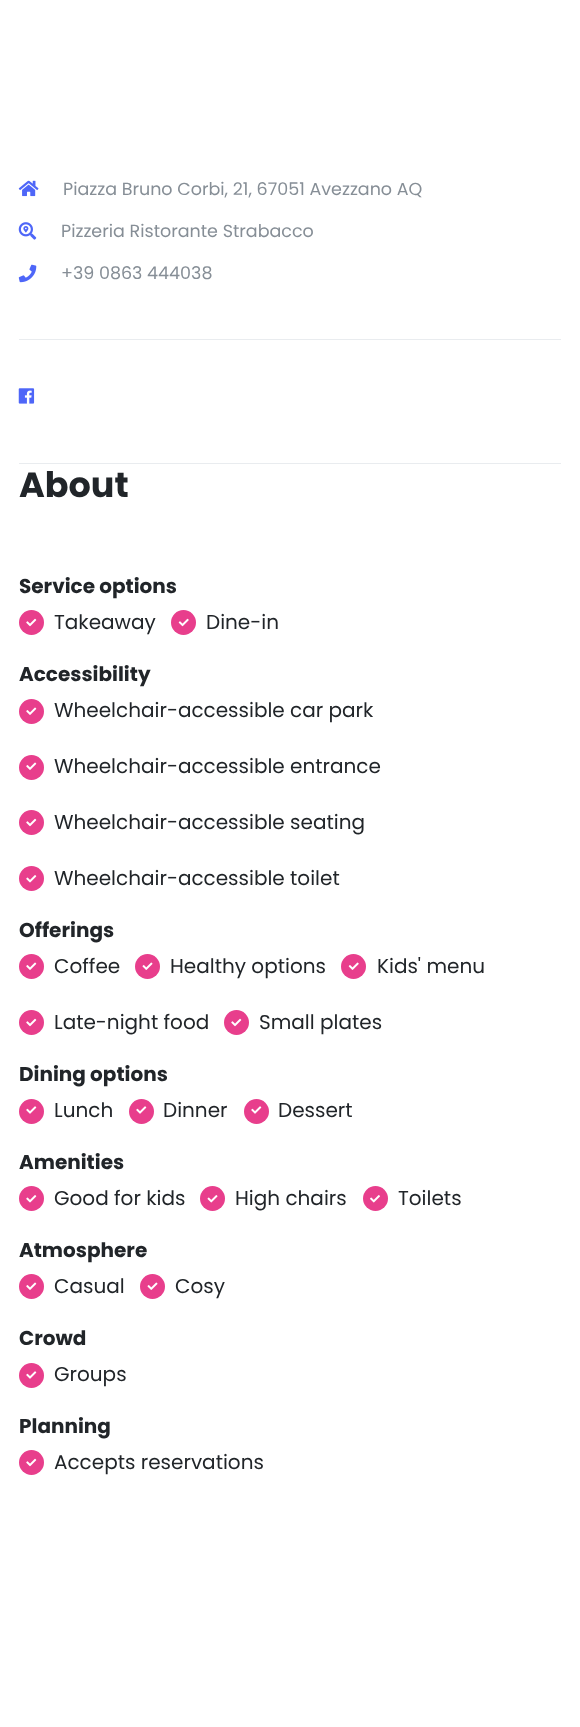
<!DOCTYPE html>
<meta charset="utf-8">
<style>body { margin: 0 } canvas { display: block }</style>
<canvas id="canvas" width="580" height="1727"></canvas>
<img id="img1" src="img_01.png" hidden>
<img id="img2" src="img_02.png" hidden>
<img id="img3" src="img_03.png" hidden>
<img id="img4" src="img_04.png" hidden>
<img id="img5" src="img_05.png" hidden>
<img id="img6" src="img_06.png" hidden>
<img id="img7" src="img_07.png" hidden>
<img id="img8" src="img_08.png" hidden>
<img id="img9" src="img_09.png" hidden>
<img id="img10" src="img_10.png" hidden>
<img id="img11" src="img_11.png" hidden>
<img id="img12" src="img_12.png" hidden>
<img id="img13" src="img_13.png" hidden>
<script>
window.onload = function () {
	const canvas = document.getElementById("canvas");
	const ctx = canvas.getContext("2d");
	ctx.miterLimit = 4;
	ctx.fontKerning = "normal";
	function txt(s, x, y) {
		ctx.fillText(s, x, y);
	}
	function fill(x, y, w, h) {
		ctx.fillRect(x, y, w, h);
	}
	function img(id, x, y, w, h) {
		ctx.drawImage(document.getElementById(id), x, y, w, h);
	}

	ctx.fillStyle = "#FFFFFF";
	fill(0, 0, 580, 1727);
	ctx.fillStyle = "#E9ECEF";
	fill(19, 339, 542, 1);
	img("img1", 18, 180, 21, 17);
	img("img2", 18, 222, 19, 18);
	img("img3", 18, 264, 19, 19);
	fill(19, 463, 542, 1);
	img("img4", 18, 388, 17, 16);
	ctx.fillStyle = "#E83E8C";
	ctx.beginPath();
	ctx.arc(31.5, 622.5, 12.5, 0, Math.PI * 2);
	ctx.fill();
	img("img5", 26, 618, 11, 9);
	ctx.beginPath();
	ctx.arc(183.5, 622.5, 12.5, 0, Math.PI * 2);
	ctx.fill();
	img("img6", 178, 618, 11, 9);
	ctx.beginPath();
	ctx.arc(31.5, 711.5, 12.5, 0, Math.PI * 2);
	ctx.fill();
	img("img7", 26, 707, 11, 8);
	ctx.beginPath();
	ctx.arc(31.5, 767.5, 12.5, 0, Math.PI * 2);
	ctx.fill();
	img("img7", 26, 762, 11, 8);
	ctx.beginPath();
	ctx.arc(31.5, 822.5, 12.5, 0, Math.PI * 2);
	ctx.fill();
	img("img5", 26, 818, 11, 9);
	ctx.beginPath();
	ctx.arc(31.5, 878.5, 12.5, 0, Math.PI * 2);
	ctx.fill();
	img("img8", 26, 875, 11, 8);
	ctx.beginPath();
	ctx.arc(31.5, 966.5, 12.5, 0, Math.PI * 2);
	ctx.fill();
	img("img7", 26, 962, 11, 8);
	ctx.beginPath();
	ctx.arc(147.5, 966.5, 12.5, 0, Math.PI * 2);
	ctx.fill();
	img("img9", 142, 962, 11, 8);
	ctx.beginPath();
	ctx.arc(353.5, 966.5, 12.5, 0, Math.PI * 2);
	ctx.fill();
	img("img10", 348, 962, 11, 8);
	ctx.beginPath();
	ctx.arc(31.5, 1022.5, 12.5, 0, Math.PI * 2);
	ctx.fill();
	img("img5", 26, 1018, 11, 9);
	ctx.beginPath();
	ctx.arc(236.5, 1022.5, 12.5, 0, Math.PI * 2);
	ctx.fill();
	img("img5", 231, 1018, 11, 9);
	ctx.beginPath();
	ctx.arc(31.5, 1111.5, 12.5, 0, Math.PI * 2);
	ctx.fill();
	img("img11", 26, 1106, 11, 8);
	ctx.beginPath();
	ctx.arc(141.5, 1111.5, 12.5, 0, Math.PI * 2);
	ctx.fill();
	img("img11", 136, 1106, 11, 8);
	ctx.beginPath();
	ctx.arc(256.5, 1111.5, 12.5, 0, Math.PI * 2);
	ctx.fill();
	img("img11", 251, 1106, 11, 8);
	ctx.beginPath();
	ctx.arc(31.5, 1198.5, 12.5, 0, Math.PI * 2);
	ctx.fill();
	img("img8", 26, 1195, 11, 8);
	ctx.beginPath();
	ctx.arc(212.5, 1198.5, 12.5, 0, Math.PI * 2);
	ctx.fill();
	img("img12", 207, 1195, 11, 8);
	ctx.beginPath();
	ctx.arc(375.5, 1198.5, 12.5, 0, Math.PI * 2);
	ctx.fill();
	img("img13", 370, 1195, 10, 8);
	ctx.beginPath();
	ctx.arc(31.5, 1286.5, 12.5, 0, Math.PI * 2);
	ctx.fill();
	img("img7", 26, 1282, 11, 8);
	ctx.beginPath();
	ctx.arc(152.5, 1286.5, 12.5, 0, Math.PI * 2);
	ctx.fill();
	img("img9", 147, 1282, 11, 8);
	ctx.beginPath();
	ctx.arc(31.5, 1375.5, 12.5, 0, Math.PI * 2);
	ctx.fill();
	img("img11", 26, 1371, 11, 8);
	ctx.beginPath();
	ctx.arc(31.5, 1462.5, 12.5, 0, Math.PI * 2);
	ctx.fill();
	img("img5", 26, 1458, 11, 9);
	ctx.font = "17.5px Poppins";
	ctx.fillStyle = "#868E96";
	txt("Piazza Bruno Corbi, 21, 67051 Avezzano AQ", 63, 195);
	txt("Pizzeria Ristorante Strabacco", 61, 237);
	txt("+39 0863 444038", 61, 279);
	ctx.font = "bold 35px Poppins";
	ctx.fillStyle = "#212529";
	txt("About", 19, 497);
	ctx.font = "bold 20px Poppins";
	txt("Service options", 19, 593);
	ctx.font = "20px Poppins";
	txt("Takeaway", 54, 629);
	txt("Dine-in", 206, 629);
	ctx.font = "bold 20px Poppins";
	txt("Accessibility", 19, 681);
	ctx.font = "20px Poppins";
	txt("Wheelchair-accessible car park", 54, 717);
	txt("Wheelchair-accessible entrance", 54, 773);
	txt("Wheelchair-accessible seating", 54, 829);
	txt("Wheelchair-accessible toilet", 54, 885);
	ctx.font = "bold 20px Poppins";
	txt("Offerings", 19, 937);
	ctx.font = "20px Poppins";
	txt("Coffee", 54, 973);
	txt("Healthy options", 170, 973);
	txt("Kids' menu", 377, 973);
	txt("Late-night food", 54, 1029);
	txt("Small plates", 259, 1029);
	ctx.font = "bold 20px Poppins";
	txt("Dining options", 19, 1081);
	ctx.font = "20px Poppins";
	txt("Lunch", 54, 1117);
	txt("Dinner", 163, 1117);
	txt("Dessert", 278, 1117);
	ctx.font = "bold 20px Poppins";
	txt("Amenities", 19, 1169);
	ctx.font = "20px Poppins";
	txt("Good for kids", 54, 1205);
	txt("High chairs", 235, 1205);
	txt("Toilets", 398, 1205);
	ctx.font = "bold 20px Poppins";
	txt("Atmosphere", 19, 1257);
	ctx.font = "20px Poppins";
	txt("Casual", 54, 1293);
	txt("Cosy", 175, 1293);
	ctx.font = "bold 20px Poppins";
	txt("Crowd", 19, 1345);
	ctx.font = "20px Poppins";
	txt("Groups", 54, 1381);
	ctx.font = "bold 20px Poppins";
	txt("Planning", 19, 1433);
	ctx.font = "20px Poppins";
	txt("Accepts reservations", 54, 1469);
};
</script>
